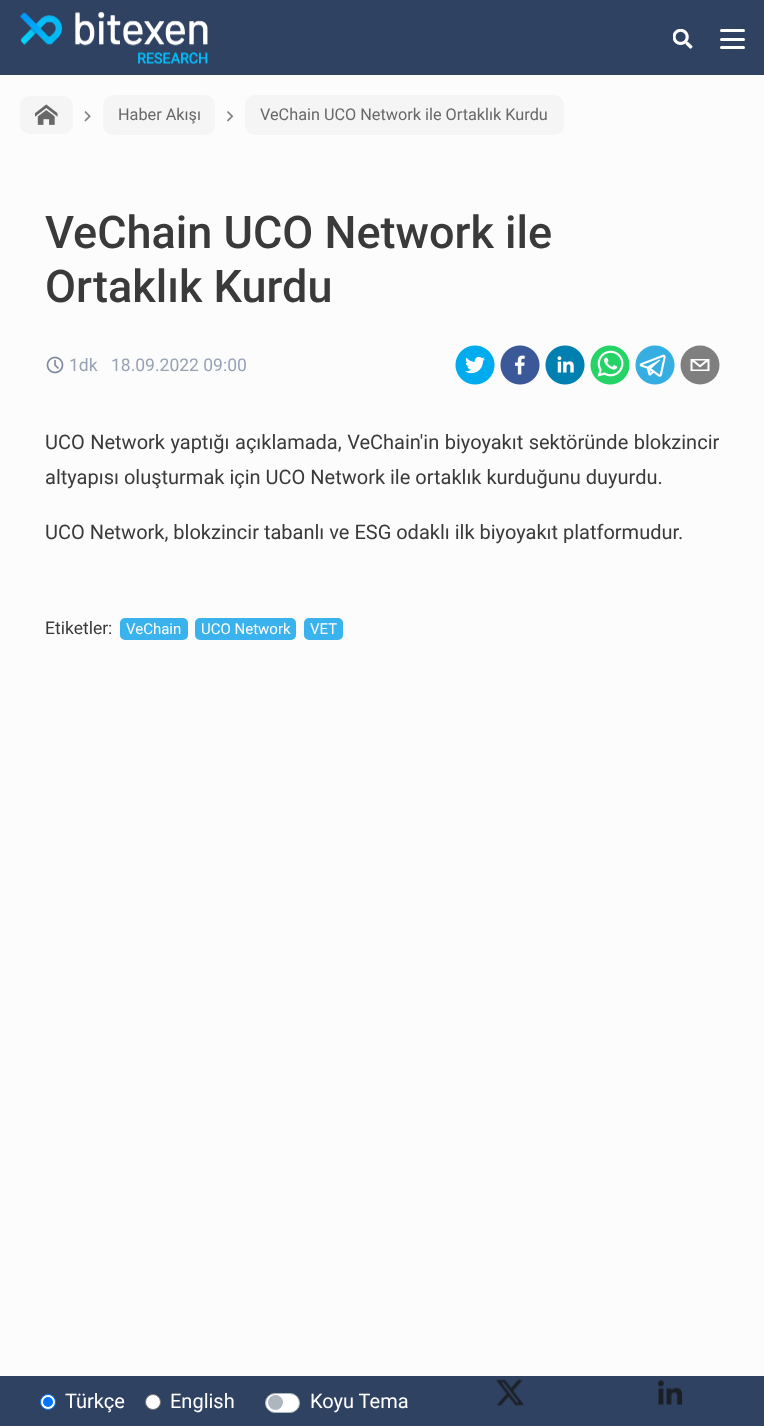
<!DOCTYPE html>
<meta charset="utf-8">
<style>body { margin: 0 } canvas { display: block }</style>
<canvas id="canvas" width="764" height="1426"></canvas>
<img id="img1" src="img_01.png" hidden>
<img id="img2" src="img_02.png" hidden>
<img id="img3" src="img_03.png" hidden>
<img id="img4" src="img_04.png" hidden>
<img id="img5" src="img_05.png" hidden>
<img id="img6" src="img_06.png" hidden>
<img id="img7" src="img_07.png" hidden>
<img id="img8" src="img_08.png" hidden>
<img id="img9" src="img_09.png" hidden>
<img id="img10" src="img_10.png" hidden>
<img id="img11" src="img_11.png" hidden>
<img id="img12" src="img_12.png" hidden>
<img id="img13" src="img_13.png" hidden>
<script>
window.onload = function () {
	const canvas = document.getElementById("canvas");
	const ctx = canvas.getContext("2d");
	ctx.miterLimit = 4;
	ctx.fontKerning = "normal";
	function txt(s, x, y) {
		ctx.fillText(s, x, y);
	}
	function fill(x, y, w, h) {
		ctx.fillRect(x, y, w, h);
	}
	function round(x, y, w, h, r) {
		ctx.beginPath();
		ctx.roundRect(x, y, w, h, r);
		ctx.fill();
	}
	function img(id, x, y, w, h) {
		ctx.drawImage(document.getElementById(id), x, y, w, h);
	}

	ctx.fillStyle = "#FCFCFC";
	fill(0, 0, 764, 1426);
	ctx.fillStyle = "#304262";
	fill(0, 0, 764, 75);
	img("img1", 20, 11, 188, 53);
	img("img2", 673, 29, 20, 20);
	ctx.fillStyle = "#FFFFFF";
	round(720, 29, 25, 3, 1.5);
	round(720, 38, 25, 3, 1.5);
	round(720, 46, 25, 3, 1.5);
	ctx.fillStyle = "#F5F5F5";
	round(20, 96, 53, 38, 10);
	img("img3", 35, 104, 23, 21);
	img("img4", 84, 111, 7, 11);
	round(103, 95, 112, 40, 10);
	img("img5", 227, 111, 7, 11);
	round(245, 95, 319, 40, 10);
	img("img6", 46, 356, 18, 18);
	img("img7", 455, 345, 40, 40);
	img("img8", 500, 345, 40, 40);
	img("img9", 545, 345, 40, 40);
	img("img10", 590, 345, 40, 40);
	img("img11", 635, 345, 40, 40);
	ctx.fillStyle = "#7F7F7F";
	ctx.beginPath();
	ctx.arc(700, 365, 19.5, 0, Math.PI * 2);
	ctx.fill();
	ctx.fillStyle = "#FFFFFF";
	ctx.beginPath();
	ctx.moveTo(690.5, 359);
	ctx.lineTo(690.5, 371);
	ctx.lineTo(709.5, 371);
	ctx.lineTo(709.5, 359);
	ctx.closePath();
	ctx.moveTo(705.5, 360.5);
	ctx.lineTo(700, 365);
	ctx.lineTo(694.5, 360.5);
	ctx.closePath();
	ctx.moveTo(692.5, 369.5);
	ctx.lineTo(692.5, 361.5);
	ctx.lineTo(700, 367.5);
	ctx.lineTo(707.5, 361.5);
	ctx.lineTo(707.5, 369.5);
	ctx.closePath();
	ctx.fill();
	ctx.fillStyle = "#3AB2EE";
	round(120, 618, 68, 22, 5);
	round(195, 618, 101, 22, 5);
	round(304, 618, 39, 22, 5);
	ctx.fillStyle = "#304262";
	fill(0, 1376, 764, 50);
	ctx.fillStyle = "#FFFFFF";
	ctx.beginPath();
	ctx.arc(48, 1402, 7.5, 0, Math.PI * 2);
	ctx.fill();
	ctx.strokeStyle = "#0075FF";
	ctx.stroke();
	ctx.fillStyle = "#0075FF";
	ctx.beginPath();
	ctx.arc(48, 1402, 5, 0, Math.PI * 2);
	ctx.fill();
	ctx.fillStyle = "#FFFFFF";
	ctx.beginPath();
	ctx.arc(153, 1402, 7.5, 0, Math.PI * 2);
	ctx.fill();
	ctx.strokeStyle = "#767676";
	ctx.stroke();
	ctx.beginPath();
	ctx.roundRect(265.5, 1393.5, 34, 19, 9.5);
	ctx.fill();
	ctx.strokeStyle = "#ADB5BD";
	ctx.stroke();
	ctx.fillStyle = "#ADB5BD";
	ctx.beginPath();
	ctx.arc(275.5, 1402.5, 7.5, 0, Math.PI * 2);
	ctx.fill();
	img("img12", 496, 1379, 28, 27);
	img("img13", 658, 1380, 25, 25);
	ctx.font = "16.25px Roboto";
	ctx.fillStyle = "#686868";
	txt("Haber Akışı", 118, 120);
	txt("VeChain UCO Network ile Ortaklık Kurdu", 260, 120);
	ctx.font = "500 45px Roboto";
	ctx.fillStyle = "#3A3A3A";
	txt("VeChain UCO Network ile", 45, 248);
	txt("Ortaklık Kurdu", 45, 302);
	ctx.font = "17.5px Roboto";
	ctx.fillStyle = "#97A2B5";
	txt("1dk", 69, 371);
	txt("18.09.2022 09:00", 111, 371);
	ctx.wordSpacing = "0.5px";
	ctx.font = "20px Roboto";
	ctx.fillStyle = "#3A3A3A";
	txt("UCO Network yaptığı açıklamada, VeChain'in biyoyakıt sektöründe blokzincir", 45, 449);
	ctx.wordSpacing = "0px";
	txt("altyapısı oluşturmak için UCO Network ile ortaklık kurduğunu duyurdu.", 45, 484);
	txt("UCO Network, blokzincir tabanlı ve ESG odaklı ilk biyoyakıt platformudur.", 45, 539);
	ctx.font = "17.5px Roboto";
	txt("Etiketler:", 45, 634);
	ctx.font = "15px Roboto";
	ctx.fillStyle = "#FFFFFF";
	txt("VeChain", 126, 634);
	txt("UCO Network", 201, 634);
	txt("VET", 310, 634);
	ctx.font = "20px Roboto";
	txt("Türkçe", 65, 1408);
	txt("English", 170, 1408);
	txt("Koyu Tema", 310, 1408);
};
</script>
